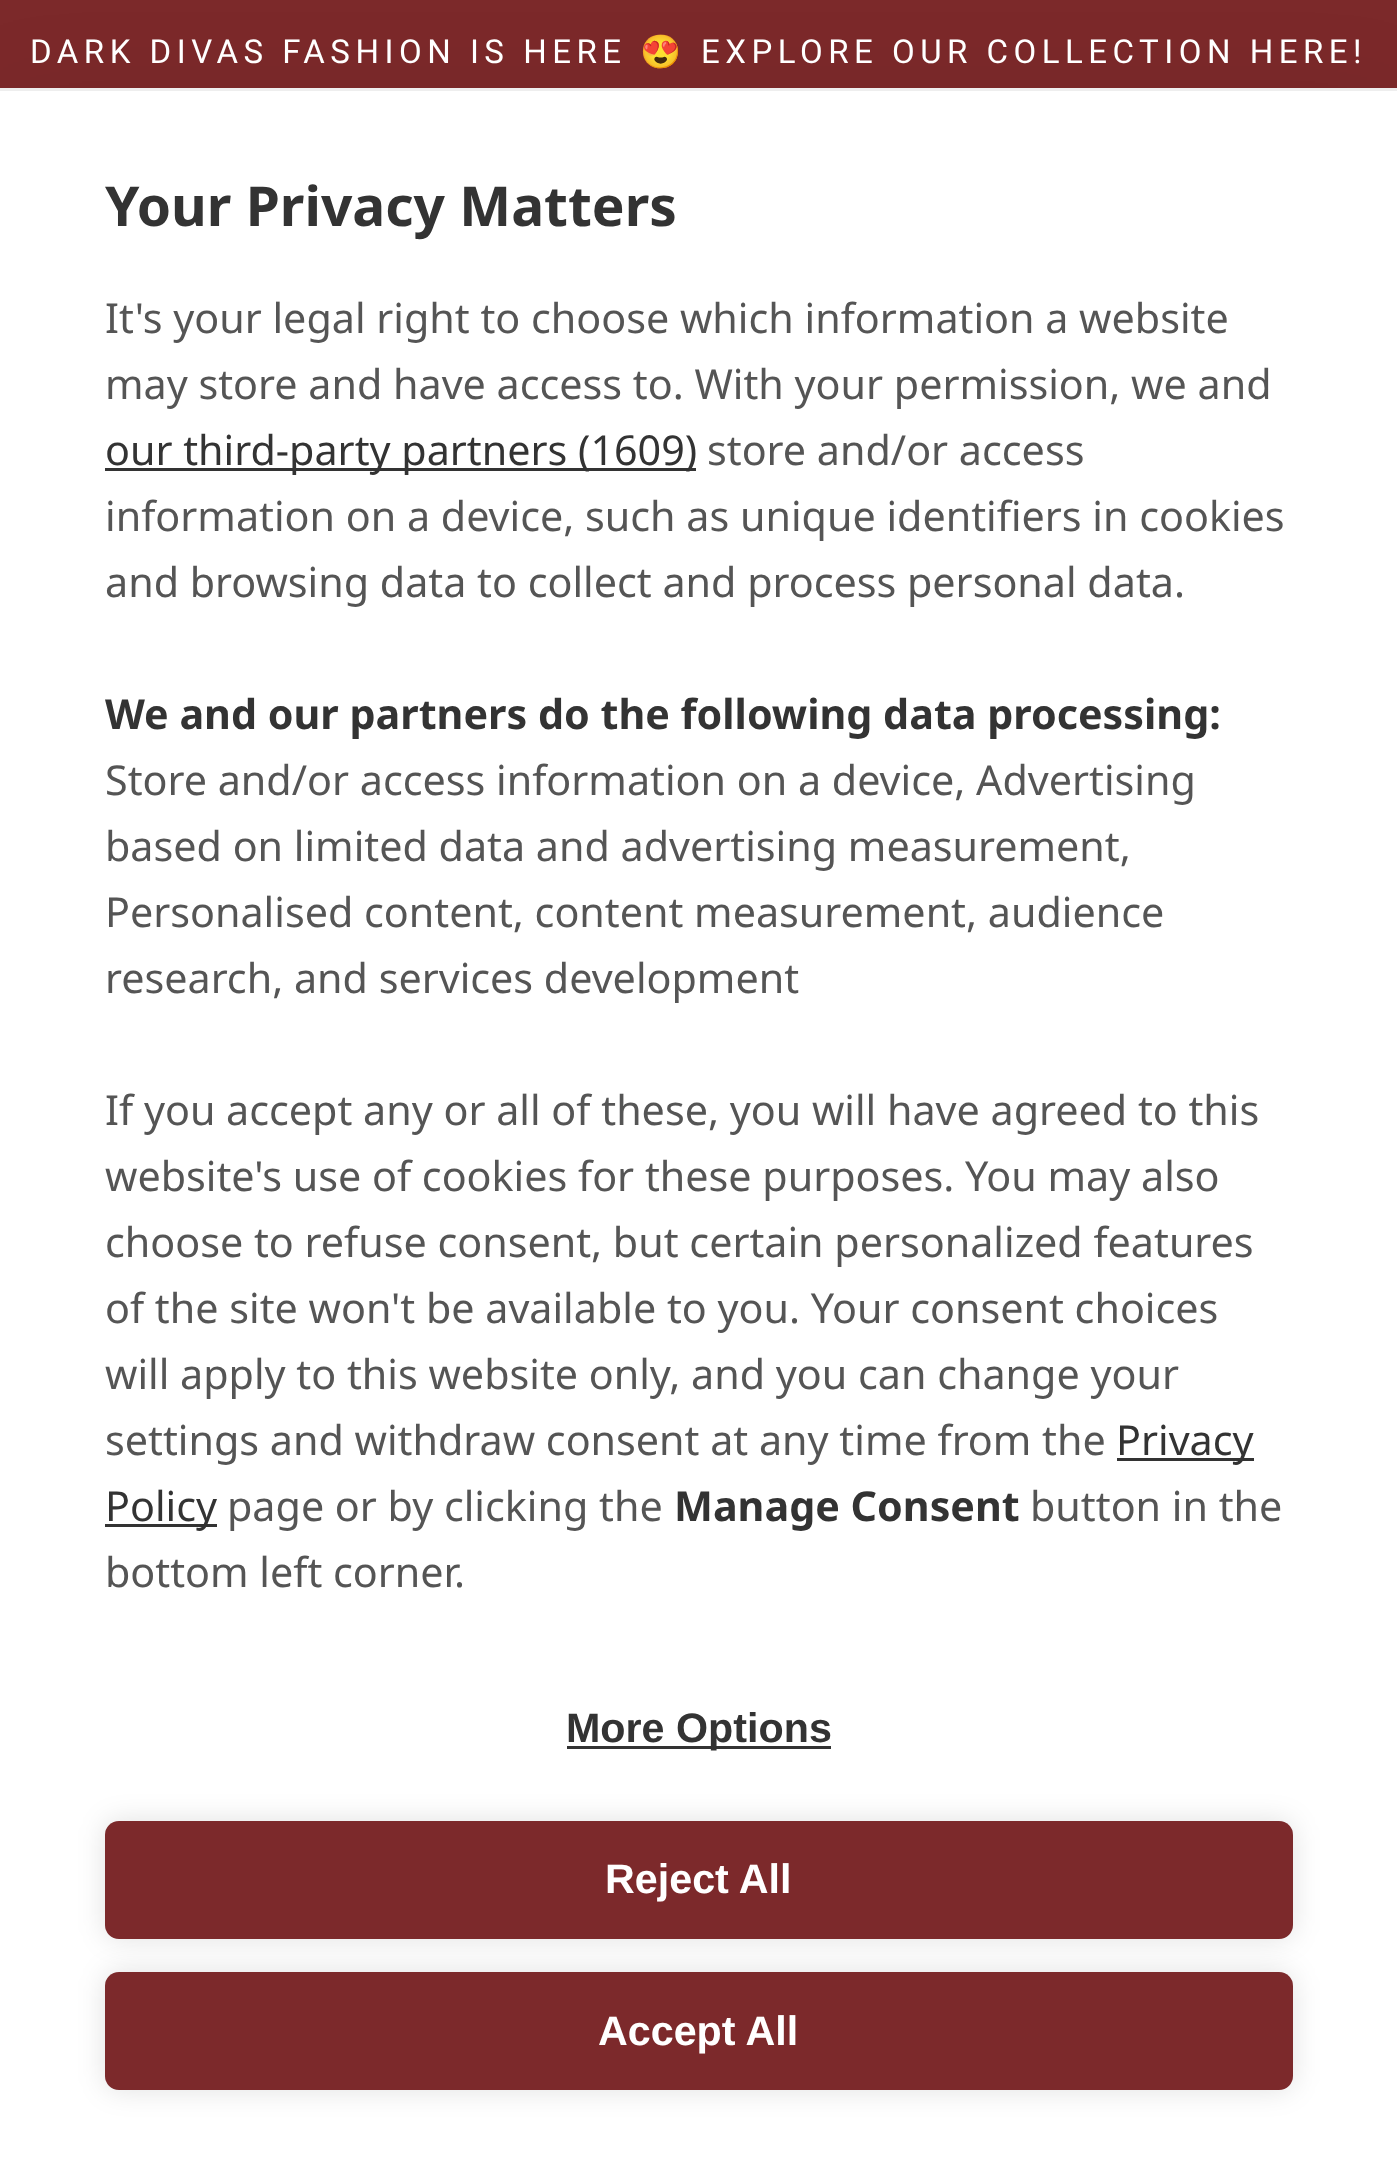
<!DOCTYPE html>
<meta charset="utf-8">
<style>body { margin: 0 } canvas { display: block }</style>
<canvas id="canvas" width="1397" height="2157"></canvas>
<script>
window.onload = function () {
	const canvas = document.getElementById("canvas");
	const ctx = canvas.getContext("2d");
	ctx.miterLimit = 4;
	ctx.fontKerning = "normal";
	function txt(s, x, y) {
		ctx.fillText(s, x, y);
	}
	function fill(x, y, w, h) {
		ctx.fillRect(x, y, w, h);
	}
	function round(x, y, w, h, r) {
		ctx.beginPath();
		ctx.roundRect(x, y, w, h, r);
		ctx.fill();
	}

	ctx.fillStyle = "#7C292A";
	fill(0, 0, 1397, 2157);
	ctx.fillStyle = "rgba(0, 0, 0, 0.1)";
	ctx.filter = "blur(55px)";
	ctx.beginPath();
	ctx.rect(0, 116, 1397, 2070);
	ctx.fill();
	ctx.filter = "none";
	ctx.fillStyle = "#FFFFFF";
	fill(0, 91, 1397, 2066);
	ctx.fillStyle = "#EEEEEE";
	fill(0, 88, 1397, 3);
	ctx.fillStyle = "#333333";
	fill(105, 468, 591, 3);
	fill(1117, 1458, 137, 3);
	fill(105, 1524, 112, 3);
	fill(567, 1746, 264, 3);
	ctx.fillStyle = "rgba(0, 0, 0, 0.12)";
	ctx.filter = "blur(14px)";
	ctx.beginPath();
	ctx.roundRect(105, 1821, 1188, 118, 14);
	ctx.fill();
	ctx.filter = "none";
	ctx.fillStyle = "#7C292B";
	round(105, 1821, 1188, 118, 14);
	ctx.fillStyle = "rgba(0, 0, 0, 0.12)";
	ctx.filter = "blur(14px)";
	ctx.beginPath();
	ctx.roundRect(105, 1972, 1188, 118, 14);
	ctx.fill();
	ctx.filter = "none";
	ctx.fillStyle = "#7C292B";
	round(105, 1972, 1188, 118, 14);
	ctx.letterSpacing = "5.5px";
	ctx.font = "33px Roboto";
	ctx.fillStyle = "#FFFFFF";
	txt("DARK DIVAS FASHION IS HERE", 30, 63);
	ctx.font = "33px Noto Color Emoji";
	txt("😍", 640, 63);
	ctx.font = "33px Roboto";
	txt("EXPLORE OUR COLLECTION HERE!", 701, 63);
	ctx.letterSpacing = "0px";
	ctx.font = "bold 55px Noto Sans";
	ctx.fillStyle = "#333333";
	txt("Your Privacy Matters", 105, 226);
	ctx.font = "41.25px Noto Sans";
	ctx.fillStyle = "#555555";
	txt("It's your legal right to choose which information a website", 105, 333);
	txt("may store and have access to. With your permission, we and", 105, 399);
	ctx.fillStyle = "#333333";
	txt("our third-party partners (1609)", 105, 465);
	ctx.fillStyle = "#555555";
	txt("store and/or access", 707, 465);
	txt("information on a device, such as unique identifiers in cookies", 105, 531);
	txt("and browsing data to collect and process personal data.", 105, 597);
	ctx.font = "bold 41.25px Noto Sans";
	ctx.fillStyle = "#333333";
	txt("We and our partners do the following data processing:", 105, 729);
	ctx.font = "41.25px Noto Sans";
	ctx.fillStyle = "#555555";
	txt("Store and/or access information on a device, Advertising", 105, 795);
	txt("based on limited data and advertising measurement,", 105, 861);
	txt("Personalised content, content measurement, audience", 105, 927);
	txt("research, and services development", 105, 993);
	txt("If you accept any or all of these, you will have agreed to this", 105, 1125);
	txt("website's use of cookies for these purposes. You may also", 105, 1191);
	txt("choose to refuse consent, but certain personalized features", 105, 1257);
	txt("of the site won't be available to you. Your consent choices", 105, 1323);
	txt("will apply to this website only, and you can change your", 105, 1389);
	txt("settings and withdraw consent at any time from the", 105, 1455);
	ctx.fillStyle = "#333333";
	txt("Privacy", 1116, 1455);
	txt("Policy", 105, 1521);
	ctx.fillStyle = "#555555";
	txt("page or by clicking the", 227, 1521);
	ctx.font = "bold 41.25px Noto Sans";
	ctx.fillStyle = "#333333";
	txt("Manage Consent", 674, 1521);
	ctx.font = "41.25px Noto Sans";
	ctx.fillStyle = "#555555";
	txt("button in the", 1030, 1521);
	txt("bottom left corner.", 105, 1587);
	ctx.font = "bold 41.25px Liberation Sans";
	ctx.fillStyle = "#333333";
	txt("More Options", 566, 1742);
	ctx.fillStyle = "#FFFFFF";
	txt("Reject All", 605, 1893);
	txt("Accept All", 598, 2045);
};
</script>
